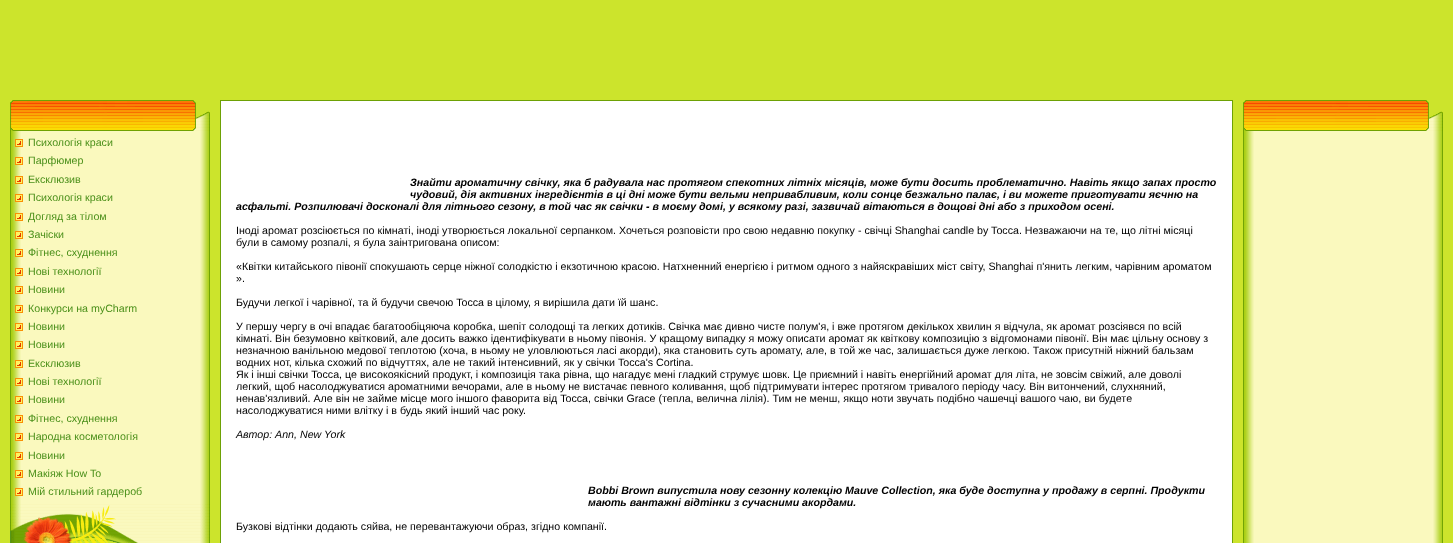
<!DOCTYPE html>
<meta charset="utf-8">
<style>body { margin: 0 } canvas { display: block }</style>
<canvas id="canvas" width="1453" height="543"></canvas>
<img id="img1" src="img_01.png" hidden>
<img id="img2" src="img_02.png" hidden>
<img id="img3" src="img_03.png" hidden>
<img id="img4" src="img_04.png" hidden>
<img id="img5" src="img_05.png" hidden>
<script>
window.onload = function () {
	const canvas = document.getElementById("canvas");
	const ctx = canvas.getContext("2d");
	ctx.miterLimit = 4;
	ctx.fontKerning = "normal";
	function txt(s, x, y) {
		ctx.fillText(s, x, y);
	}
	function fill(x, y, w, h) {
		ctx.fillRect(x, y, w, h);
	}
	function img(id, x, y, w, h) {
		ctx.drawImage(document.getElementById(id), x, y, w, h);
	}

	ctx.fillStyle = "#CCE42C";
	fill(0, 0, 1453, 543);
	img("img1", 10, 100, 200, 31);
	img("img2", 10, 131, 200, 373);
	img("img3", 15, 139, 8, 8);
	img("img3", 15, 157, 8, 8);
	img("img3", 15, 176, 8, 8);
	img("img3", 15, 194, 8, 8);
	img("img3", 15, 213, 8, 8);
	img("img3", 15, 231, 8, 8);
	img("img3", 15, 249, 8, 8);
	img("img3", 15, 268, 8, 8);
	img("img3", 15, 286, 8, 8);
	img("img3", 15, 305, 8, 8);
	img("img3", 15, 323, 8, 8);
	img("img3", 15, 341, 8, 8);
	img("img3", 15, 360, 8, 8);
	img("img3", 15, 378, 8, 8);
	img("img3", 15, 396, 8, 8);
	img("img3", 15, 415, 8, 8);
	img("img3", 15, 433, 8, 8);
	img("img3", 15, 452, 8, 8);
	img("img3", 15, 470, 8, 8);
	img("img3", 15, 488, 8, 8);
	img("img4", 10, 504, 200, 39);
	ctx.strokeStyle = "#6DA104";
	ctx.strokeRect(220.5, 100.5, 1012, 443);
	ctx.fillStyle = "#FFFFFF";
	fill(221, 101, 1011, 442);
	img("img1", 1243, 100, 200, 31);
	img("img5", 1243, 131, 200, 412);
	ctx.font = "10.67px Liberation Sans";
	ctx.fillStyle = "#4B901A";
	txt("Психологія краси", 28, 146);
	txt("Парфюмер", 28, 164);
	txt("Ексклюзив", 28, 183);
	txt("Психологія краси", 28, 201);
	txt("Догляд за тілом", 28, 220);
	txt("Зачіски", 28, 238);
	txt("Фітнес, схуднення", 28, 256);
	txt("Нові технології", 28, 275);
	txt("Новини", 28, 293);
	txt("Конкурси на myCharm", 28, 312);
	txt("Новини", 28, 330);
	txt("Новини", 28, 348);
	txt("Ексклюзив", 28, 367);
	txt("Нові технології", 28, 385);
	txt("Новини", 28, 403);
	txt("Фітнес, схуднення", 28, 422);
	txt("Народна косметологія", 28, 440);
	txt("Новини", 28, 459);
	txt("Макіяж How To", 28, 477);
	txt("Мій стильний гардероб", 28, 495);
	ctx.font = "italic bold 10.67px Liberation Sans";
	ctx.fillStyle = "#000000";
	txt("Знайти ароматичну свічку, яка б радувала нас протягом спекотних літніх місяців, може бути досить проблематично. Навіть якщо запах просто", 410, 186);
	txt("чудовий, дія активних інгредієнтів в ці дні може бути вельми непривабливим, коли сонце безжально палає, і ви можете приготувати яєчню на", 410, 198);
	txt("асфальті. Розпилювачі досконалі для літнього сезону, в той час як свічки - в моєму домі, у всякому разі, зазвичай вітаються в дощові дні або з приходом осені.", 236, 210);
	ctx.font = "10.67px Liberation Sans";
	txt("Іноді аромат розсіюється по кімнаті, іноді утворюється локальної серпанком. Хочеться розповісти про свою недавню покупку - свічці Shanghai candle by Tocca. Незважаючи на те, що літні місяці", 236, 234);
	txt("були в самому розпалі, я була заінтригована описом:", 236, 246);
	txt("«Квітки китайського півонії спокушають серце ніжної солодкістю і екзотичною красою. Натхненний енергією і ритмом одного з найяскравіших міст світу, Shanghai п'янить легким, чарівним ароматом", 236, 270);
	txt("».", 236, 282);
	txt("Будучи легкої і чарівної, та й будучи свечою Tocca в цілому, я вирішила дати їй шанс.", 236, 306);
	txt("У першу чергу в очі впадає багатообіцяюча коробка, шепіт солодощі та легких дотиків. Свічка має дивно чисте полум'я, і вже протягом декількох хвилин я відчула, як аромат розсіявся по всій", 236, 330);
	txt("кімнаті. Він безумовно квітковий, але досить важко ідентифікувати в ньому півонія. У кращому випадку я можу описати аромат як квіткову композицію з відгомонами півонії. Він має цільну основу з", 236, 342);
	txt("незначною ванільною медової теплотою (хоча, в ньому не уловлюються ласі акорди), яка становить суть аромату, але, в той же час, залишається дуже легкою. Також присутній ніжний бальзам", 236, 354);
	txt("водних нот, кілька схожий по відчуттях, але не такий інтенсивний, як у свічки Tocca's Cortina.", 236, 366);
	txt("Як і інші свічки Tocca, це високоякісний продукт, і композиція така рівна, що нагадує мені гладкий струмує шовк. Це приємний і навіть енергійний аромат для літа, не зовсім свіжий, але доволі", 236, 378);
	txt("легкий, щоб насолоджуватися ароматними вечорами, але в ньому не вистачає певного коливання, щоб підтримувати інтерес протягом тривалого періоду часу. Він витончений, слухняний,", 236, 390);
	txt("ненав'язливий. Але він не займе місце мого іншого фаворита від Tocca, свічки Grace (тепла, велична лілія). Тим не менш, якщо ноти звучать подібно чашечці вашого чаю, ви будете", 236, 402);
	txt("насолоджуватися ними влітку і в будь який інший час року.", 236, 414);
	ctx.font = "italic 10.67px Liberation Sans";
	txt("Автор: Ann, New York", 236, 438);
	ctx.font = "italic bold 10.67px Liberation Sans";
	txt("Bobbi Brown випустила нову сезонну колекцію Mauve Collection, яка буде доступна у продажу в серпні. Продукти", 588, 494);
	txt("мають вантажні відтінки з сучасними акордами.", 588, 506);
	ctx.font = "10.67px Liberation Sans";
	txt("Бузкові відтінки додають сяйва, не перевантажуючи образ, згідно компанії.", 236, 530);
};
</script>
